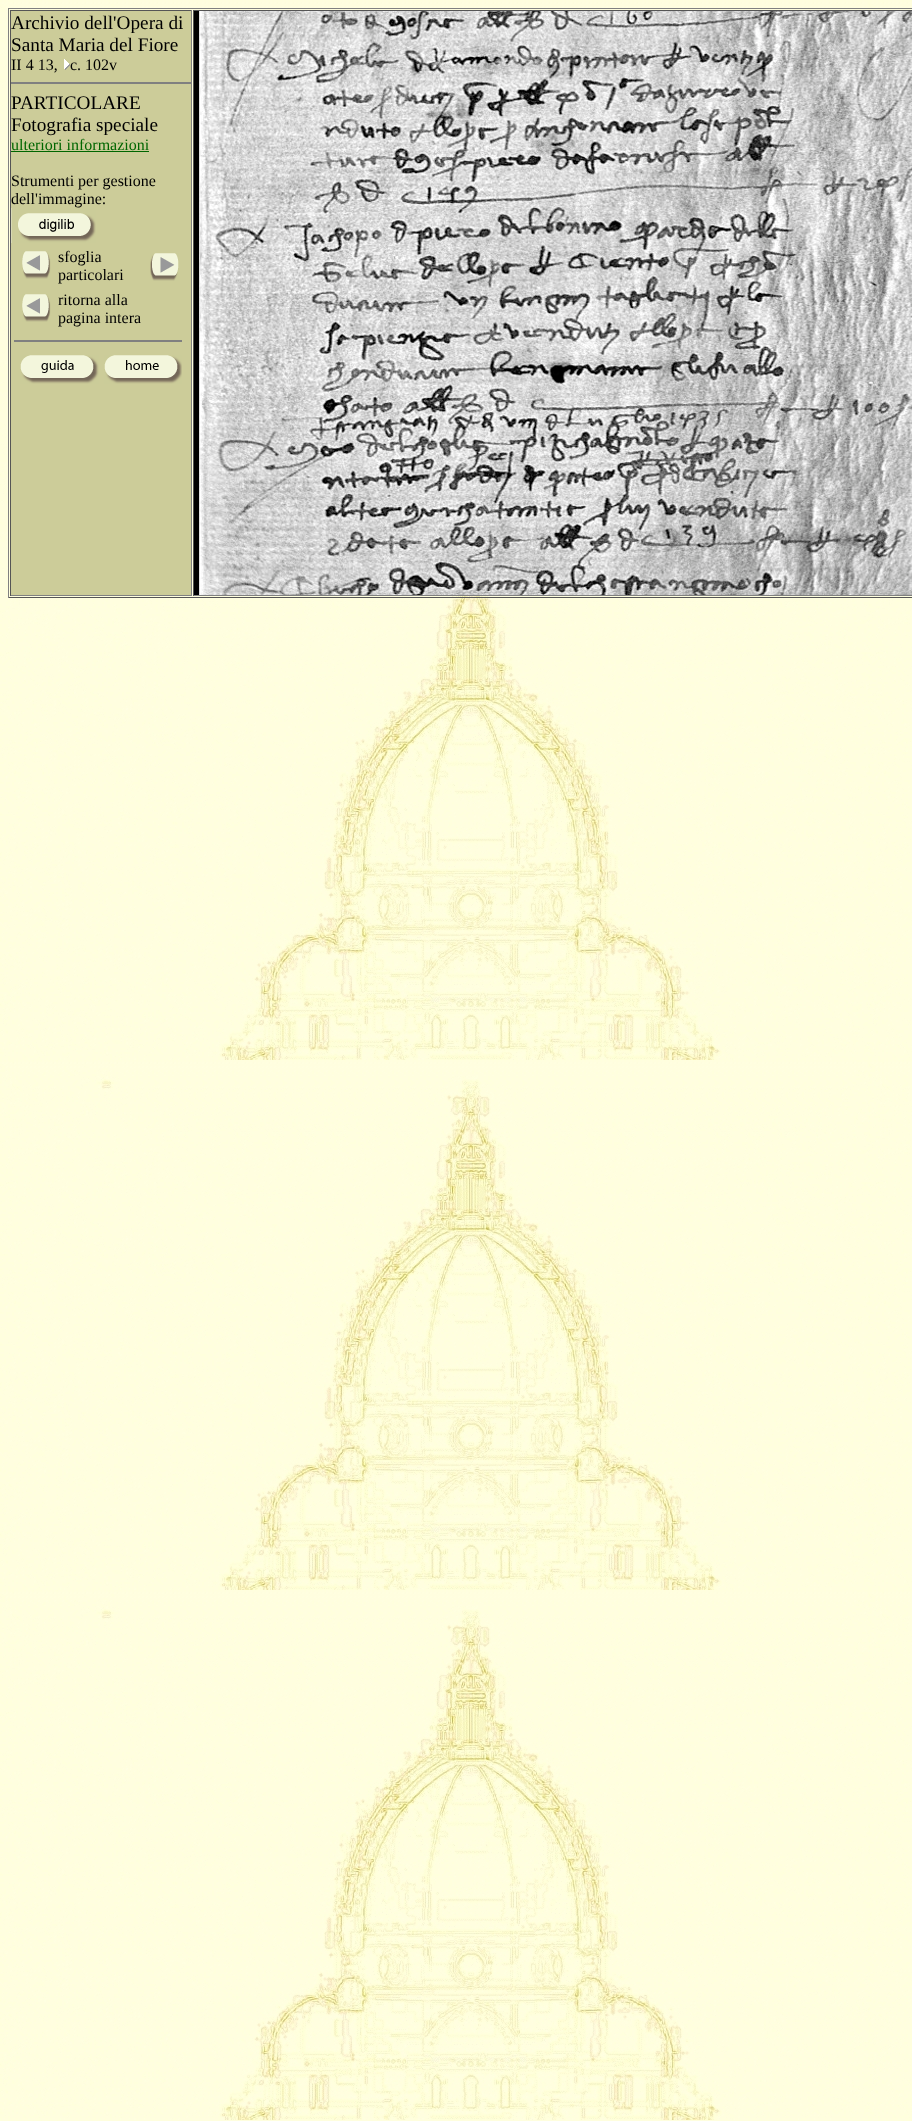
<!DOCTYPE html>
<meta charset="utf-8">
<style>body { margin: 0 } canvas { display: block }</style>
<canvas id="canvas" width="912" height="2121"></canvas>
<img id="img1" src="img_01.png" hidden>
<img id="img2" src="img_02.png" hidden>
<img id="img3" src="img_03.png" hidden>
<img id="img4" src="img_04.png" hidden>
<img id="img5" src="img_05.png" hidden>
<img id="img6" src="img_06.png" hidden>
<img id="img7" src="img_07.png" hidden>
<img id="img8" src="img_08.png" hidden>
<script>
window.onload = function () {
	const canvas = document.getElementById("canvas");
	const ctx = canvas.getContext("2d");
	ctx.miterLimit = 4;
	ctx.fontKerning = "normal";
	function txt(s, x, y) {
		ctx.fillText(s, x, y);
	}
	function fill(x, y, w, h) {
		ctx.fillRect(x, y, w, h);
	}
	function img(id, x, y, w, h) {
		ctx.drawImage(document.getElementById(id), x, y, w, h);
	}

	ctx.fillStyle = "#FFFFFF";
	fill(0, 0, 912, 2121);
	img("img1", 0, 0, 912, 2121);
	ctx.fillStyle = "#808080";
	fill(8, 8, 904, 1);
	ctx.fillStyle = "#555555";
	fill(8, 597, 904, 1);
	ctx.fillStyle = "#808080";
	fill(8, 8, 1, 590);
	ctx.fillStyle = "#CCCC99";
	fill(11, 11, 180, 584);
	ctx.fillStyle = "#555555";
	fill(10, 10, 182, 1);
	ctx.fillStyle = "#808080";
	fill(191, 10, 1, 586);
	fill(10, 595, 182, 1);
	ctx.fillStyle = "#555555";
	fill(10, 10, 1, 586);
	img("img2", 64, 59, 6, 11);
	ctx.fillStyle = "#808080";
	fill(11, 82, 180, 2);
	ctx.fillStyle = "#006600";
	fill(11, 151, 138, 1);
	img("img3", 11, 208, 85, 35);
	img("img4", 22, 251, 29, 28);
	img("img5", 150, 253, 29, 28);
	img("img4", 22, 294, 29, 28);
	ctx.fillStyle = "#808080";
	fill(14, 340, 168, 2);
	img("img6", 20, 355, 79, 29);
	img("img7", 104, 355, 78, 29);
	ctx.fillStyle = "#555555";
	fill(193, 10, 719, 1);
	ctx.fillStyle = "#808080";
	fill(193, 595, 719, 1);
	ctx.fillStyle = "#555555";
	fill(193, 10, 1, 586);
	img("img8", 194, 11, 718, 584);
	ctx.font = "19.25px Liberation Serif";
	ctx.fillStyle = "#000000";
	txt("Archivio dell'Opera di", 11, 29);
	txt("Santa Maria del Fiore", 11, 51);
	ctx.font = "16px Liberation Serif";
	txt("II 4 13,", 11, 70);
	txt("c. 102v", 70, 70);
	ctx.font = "19.25px Liberation Serif";
	txt("PARTICOLARE", 11, 109);
	txt("Fotografia speciale", 11, 131);
	ctx.font = "16px Liberation Serif";
	ctx.fillStyle = "#006600";
	txt("ulteriori informazioni", 11, 150);
	ctx.fillStyle = "#000000";
	txt("Strumenti per gestione", 11, 186);
	txt("dell'immagine:", 11, 204);
	txt("sfoglia", 58, 262);
	txt("particolari", 58, 280);
	txt("ritorna alla", 58, 305);
	txt("pagina intera", 58, 323);
};
</script>
